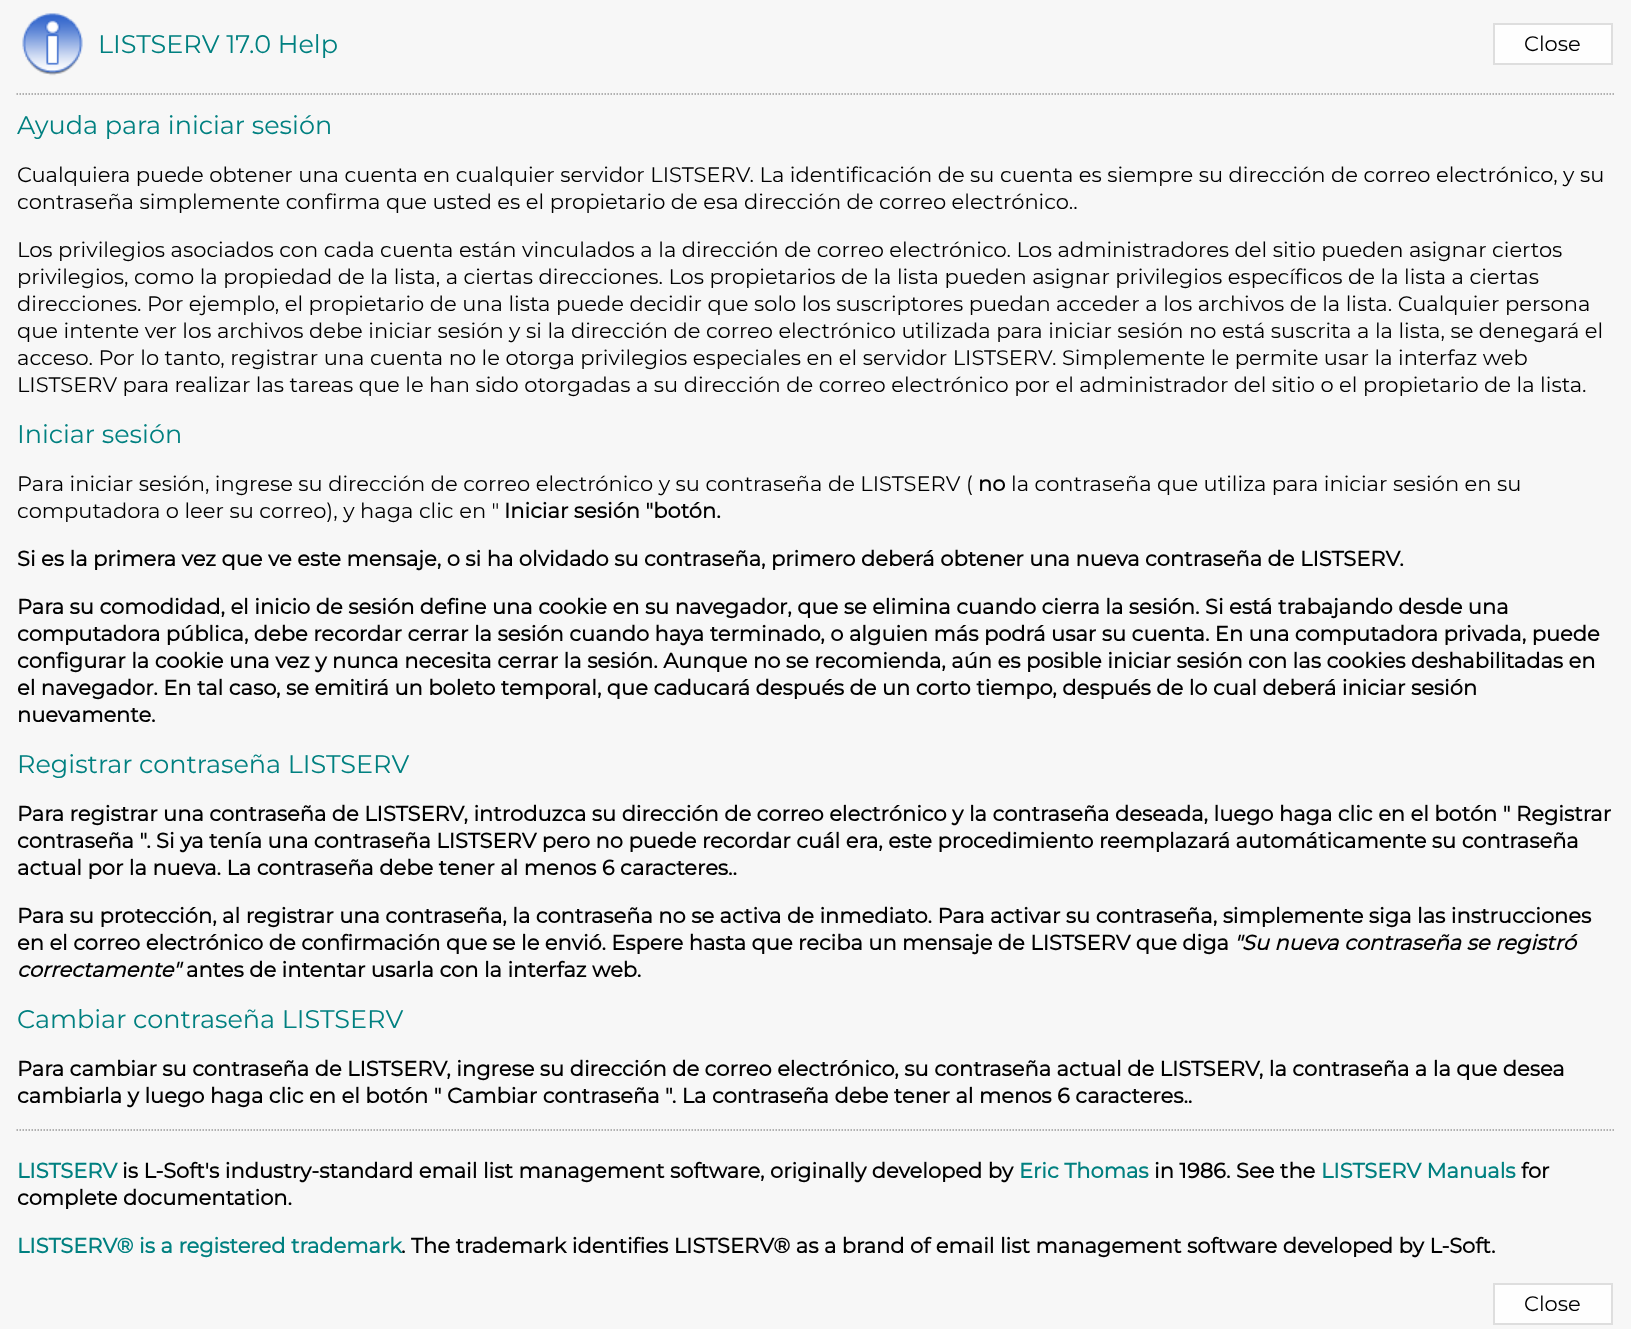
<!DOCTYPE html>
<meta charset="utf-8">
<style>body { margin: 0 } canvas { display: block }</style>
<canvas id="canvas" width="1631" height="1329"></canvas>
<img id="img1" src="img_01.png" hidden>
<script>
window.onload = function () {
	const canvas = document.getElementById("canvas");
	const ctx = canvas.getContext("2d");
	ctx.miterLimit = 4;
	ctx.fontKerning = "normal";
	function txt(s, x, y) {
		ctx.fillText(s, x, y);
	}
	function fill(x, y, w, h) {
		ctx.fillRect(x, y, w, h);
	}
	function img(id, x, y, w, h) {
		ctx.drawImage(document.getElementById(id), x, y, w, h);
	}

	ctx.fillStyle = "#F7F7F7";
	fill(0, 0, 1631, 1329);
	img("img1", 22, 13, 61, 63);
	ctx.fillStyle = "#FEFEFE";
	ctx.beginPath();
	ctx.rect(1494, 24, 118, 40);
	ctx.fill();
	ctx.strokeStyle = "#DEDEDE";
	ctx.lineWidth = 2;
	ctx.stroke();
	ctx.beginPath();
	ctx.moveTo(16.5, 94);
	ctx.lineTo(1615.5, 94);
	ctx.strokeStyle = "#999999";
	ctx.lineWidth = 1.5;
	ctx.setLineDash([1.5, 1.5]);
	ctx.stroke();
	ctx.beginPath();
	ctx.moveTo(16.5, 1130);
	ctx.lineTo(1615.5, 1130);
	ctx.stroke();
	ctx.beginPath();
	ctx.rect(1494, 1284, 118, 40);
	ctx.fill();
	ctx.strokeStyle = "#DEDEDE";
	ctx.lineWidth = 2;
	ctx.setLineDash([]);
	ctx.stroke();
	ctx.font = "100 25.5px Montserrat";
	ctx.fillStyle = "#008080";
	txt("LISTSERV 17.0 Help", 98, 53);
	ctx.font = "100 21px Montserrat";
	ctx.fillStyle = "#000000";
	txt("Close", 1524, 51);
	ctx.font = "100 25.5px Montserrat";
	ctx.fillStyle = "#008080";
	txt("Ayuda para iniciar sesión", 17, 134);
	ctx.font = "100 21px Montserrat";
	ctx.fillStyle = "#000000";
	txt("Cualquiera puede obtener una cuenta en cualquier servidor LISTSERV. La identificación de su cuenta es siempre su dirección de correo electrónico, y su", 17, 182);
	txt("contraseña simplemente confirma que usted es el propietario de esa dirección de correo electrónico..", 17, 209);
	txt("Los privilegios asociados con cada cuenta están vinculados a la dirección de correo electrónico. Los administradores del sitio pueden asignar ciertos", 17, 257);
	txt("privilegios, como la propiedad de la lista, a ciertas direcciones. Los propietarios de la lista pueden asignar privilegios específicos de la lista a ciertas", 17, 284);
	txt("direcciones. Por ejemplo, el propietario de una lista puede decidir que solo los suscriptores puedan acceder a los archivos de la lista. Cualquier persona", 17, 311);
	txt("que intente ver los archivos debe iniciar sesión y si la dirección de correo electrónico utilizada para iniciar sesión no está suscrita a la lista, se denegará el", 17, 338);
	txt("acceso. Por lo tanto, registrar una cuenta no le otorga privilegios especiales en el servidor LISTSERV. Simplemente le permite usar la interfaz web", 17, 365);
	txt("LISTSERV para realizar las tareas que le han sido otorgadas a su dirección de correo electrónico por el administrador del sitio o el propietario de la lista.", 17, 392);
	ctx.font = "100 25.5px Montserrat";
	ctx.fillStyle = "#008080";
	txt("Iniciar sesión", 17, 443);
	ctx.font = "100 21px Montserrat";
	ctx.fillStyle = "#000000";
	txt("Para iniciar sesión, ingrese su dirección de correo electrónico y su contraseña de LISTSERV (", 17, 491);
	ctx.font = "bold 21px Montserrat";
	txt("no", 978, 491);
	ctx.font = "100 21px Montserrat";
	txt("la contraseña que utiliza para iniciar sesión en su", 1011, 491);
	txt("computadora o leer su correo), y haga clic en \"", 17, 518);
	ctx.font = "bold 21px Montserrat";
	txt("Iniciar sesión \"botón.", 504, 518);
	txt("Si es la primera vez que ve este mensaje, o si ha olvidado su contraseña, primero deberá obtener una nueva contraseña de LISTSERV.", 17, 566);
	txt("Para su comodidad, el inicio de sesión define una cookie en su navegador, que se elimina cuando cierra la sesión. Si está trabajando desde una", 17, 614);
	txt("computadora pública, debe recordar cerrar la sesión cuando haya terminado, o alguien más podrá usar su cuenta. En una computadora privada, puede", 17, 641);
	txt("configurar la cookie una vez y nunca necesita cerrar la sesión. Aunque no se recomienda, aún es posible iniciar sesión con las cookies deshabilitadas en", 17, 668);
	txt("el navegador. En tal caso, se emitirá un boleto temporal, que caducará después de un corto tiempo, después de lo cual deberá iniciar sesión", 17, 695);
	txt("nuevamente.", 17, 722);
	ctx.font = "100 25.5px Montserrat";
	ctx.fillStyle = "#008080";
	txt("Registrar contraseña LISTSERV", 17, 773);
	ctx.font = "bold 21px Montserrat";
	ctx.fillStyle = "#000000";
	txt("Para registrar una contraseña de LISTSERV, introduzca su dirección de correo electrónico y la contraseña deseada, luego haga clic en el botón \" Registrar", 17, 821);
	txt("contraseña \". Si ya tenía una contraseña LISTSERV pero no puede recordar cuál era, este procedimiento reemplazará automáticamente su contraseña", 17, 848);
	txt("actual por la nueva. La contraseña debe tener al menos 6 caracteres..", 17, 875);
	txt("Para su protección, al registrar una contraseña, la contraseña no se activa de inmediato. Para activar su contraseña, simplemente siga las instrucciones", 17, 923);
	txt("en el correo electrónico de confirmación que se le envió. Espere hasta que reciba un mensaje de LISTSERV que diga", 17, 950);
	ctx.font = "italic bold 21px Montserrat";
	txt("\"Su nueva contraseña se registró", 1234, 950);
	txt("correctamente\"", 17, 977);
	ctx.font = "bold 21px Montserrat";
	txt("antes de intentar usarla con la interfaz web.", 186, 977);
	ctx.font = "100 25.5px Montserrat";
	ctx.fillStyle = "#008080";
	txt("Cambiar contraseña LISTSERV", 17, 1028);
	ctx.font = "bold 21px Montserrat";
	ctx.fillStyle = "#000000";
	txt("Para cambiar su contraseña de LISTSERV, ingrese su dirección de correo electrónico, su contraseña actual de LISTSERV, la contraseña a la que desea", 17, 1076);
	txt("cambiarla y luego haga clic en el botón \" Cambiar contraseña \". La contraseña debe tener al menos 6 caracteres..", 17, 1103);
	ctx.fillStyle = "#008080";
	txt("LISTSERV", 17, 1178);
	ctx.fillStyle = "#000000";
	txt("is L-Soft's industry-standard email list management software, originally developed by", 122, 1178);
	ctx.fillStyle = "#008080";
	txt("Eric Thomas", 1019, 1178);
	ctx.fillStyle = "#000000";
	txt("in 1986. See the", 1154, 1178);
	ctx.fillStyle = "#008080";
	txt("LISTSERV Manuals", 1321, 1178);
	ctx.fillStyle = "#000000";
	txt("for", 1521, 1178);
	txt("complete documentation.", 17, 1205);
	ctx.fillStyle = "#008080";
	txt("LISTSERV® is a registered trademark", 17, 1253);
	ctx.fillStyle = "#000000";
	txt(". The trademark identifies LISTSERV® as a brand of email list management software developed by L-Soft.", 401, 1253);
	ctx.font = "100 21px Montserrat";
	txt("Close", 1524, 1311);
};
</script>
